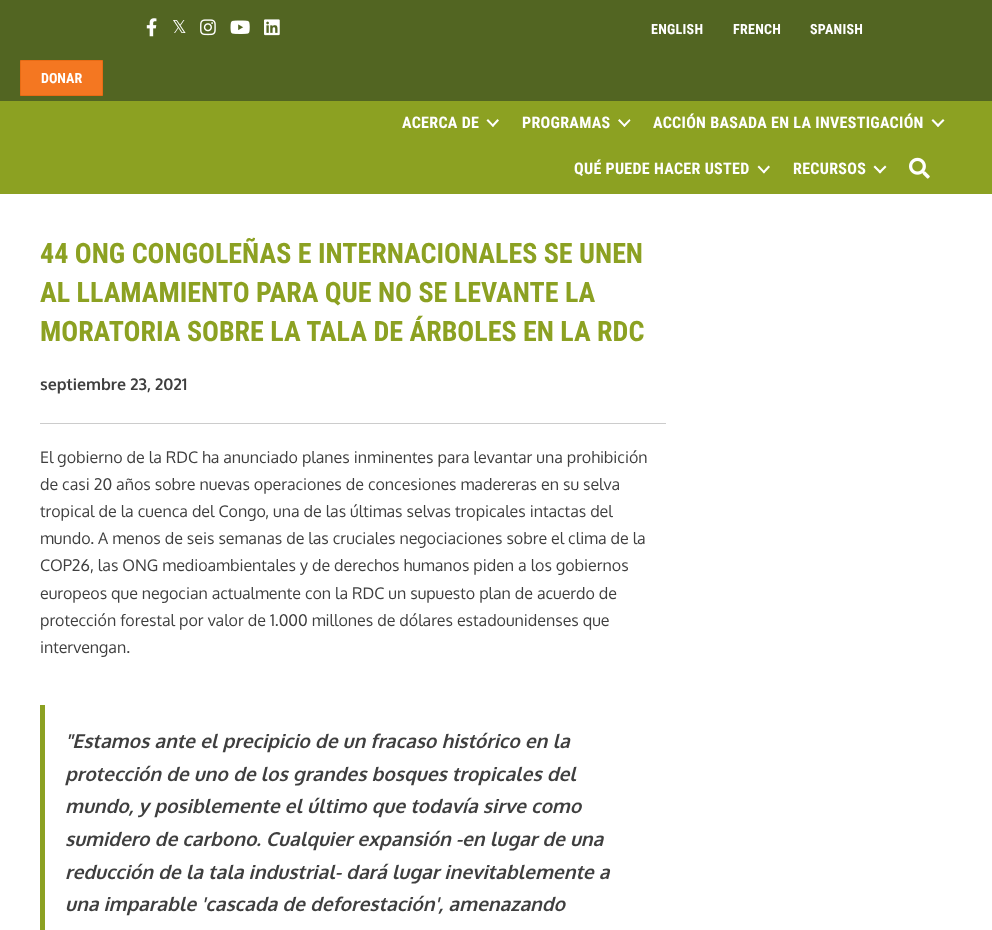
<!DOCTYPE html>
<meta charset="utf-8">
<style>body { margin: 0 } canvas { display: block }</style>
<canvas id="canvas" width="992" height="930"></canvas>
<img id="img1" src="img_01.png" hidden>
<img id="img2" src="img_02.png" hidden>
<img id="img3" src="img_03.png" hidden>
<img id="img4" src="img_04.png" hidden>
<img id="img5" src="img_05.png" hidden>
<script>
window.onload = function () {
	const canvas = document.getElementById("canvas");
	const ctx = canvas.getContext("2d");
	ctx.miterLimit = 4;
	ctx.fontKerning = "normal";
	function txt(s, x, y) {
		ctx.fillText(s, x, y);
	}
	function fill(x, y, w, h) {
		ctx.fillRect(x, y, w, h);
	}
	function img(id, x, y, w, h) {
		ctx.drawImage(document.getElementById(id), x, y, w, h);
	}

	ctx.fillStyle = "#FFFFFF";
	fill(0, 0, 992, 930);
	ctx.fillStyle = "#526522";
	fill(0, 0, 992, 101);
	img("img1", 146, 18, 11, 19);
	img("img2", 200, 19, 16, 17);
	img("img3", 230, 20, 20, 14);
	img("img4", 264, 19, 16, 17);
	ctx.fillStyle = "#F47721";
	ctx.beginPath();
	ctx.rect(20.5, 60.5, 82, 35);
	ctx.fill();
	ctx.strokeStyle = "#E86B15";
	ctx.stroke();
	ctx.fillStyle = "#8CA122";
	fill(0, 101, 992, 93);
	ctx.fillStyle = "#FFFFFF";
	ctx.beginPath();
	ctx.moveTo(497.5, 119);
	ctx.lineTo(499, 120.5);
	ctx.lineTo(493, 127);
	ctx.lineTo(491.5, 125.5);
	ctx.closePath();
	ctx.fill();
	ctx.beginPath();
	ctx.moveTo(488, 119);
	ctx.lineTo(494, 125.5);
	ctx.lineTo(493, 127);
	ctx.lineTo(486.5, 120.5);
	ctx.closePath();
	ctx.fill();
	ctx.beginPath();
	ctx.moveTo(629.5, 119);
	ctx.lineTo(630.5, 120.5);
	ctx.lineTo(624.5, 127);
	ctx.lineTo(623, 125.5);
	ctx.closePath();
	ctx.fill();
	ctx.beginPath();
	ctx.moveTo(619.5, 119);
	ctx.lineTo(625.5, 125.5);
	ctx.lineTo(624.5, 127);
	ctx.lineTo(618, 120.5);
	ctx.closePath();
	ctx.fill();
	ctx.beginPath();
	ctx.moveTo(943, 119);
	ctx.lineTo(944.5, 120.5);
	ctx.lineTo(938, 127);
	ctx.lineTo(936.5, 125.5);
	ctx.closePath();
	ctx.fill();
	ctx.beginPath();
	ctx.moveTo(933, 119);
	ctx.lineTo(939.5, 125.5);
	ctx.lineTo(938, 127);
	ctx.lineTo(931.5, 120.5);
	ctx.closePath();
	ctx.fill();
	ctx.beginPath();
	ctx.moveTo(768.5, 165.5);
	ctx.lineTo(770, 167);
	ctx.lineTo(764, 173.5);
	ctx.lineTo(762.5, 172);
	ctx.closePath();
	ctx.fill();
	ctx.beginPath();
	ctx.moveTo(759, 165.5);
	ctx.lineTo(765, 172);
	ctx.lineTo(764, 173.5);
	ctx.lineTo(757.5, 167);
	ctx.closePath();
	ctx.fill();
	ctx.beginPath();
	ctx.moveTo(885, 165.5);
	ctx.lineTo(886.5, 167);
	ctx.lineTo(880, 173.5);
	ctx.lineTo(878.5, 172);
	ctx.closePath();
	ctx.fill();
	ctx.beginPath();
	ctx.moveTo(875, 165.5);
	ctx.lineTo(881.5, 172);
	ctx.lineTo(880, 173.5);
	ctx.lineTo(873.5, 167);
	ctx.closePath();
	ctx.fill();
	img("img5", 909, 157, 21, 22);
	ctx.fillStyle = "#CCCCCC";
	fill(40, 423, 626, 1);
	ctx.fillStyle = "#8CA122";
	fill(40, 705, 5, 225);
	ctx.font = "18px DejaVu Sans";
	ctx.fillStyle = "#FFFFFF";
	txt("𝕏", 172, 33);
	ctx.letterSpacing = "0.3px";
	ctx.font = "bold 14px Roboto Condensed";
	txt("ENGLISH", 651, 34);
	txt("FRENCH", 733, 34);
	txt("SPANISH", 810, 34);
	ctx.letterSpacing = "0px";
	txt("DONAR", 41, 83);
	ctx.letterSpacing = "0.3px";
	ctx.font = "bold 16px Roboto Condensed";
	txt("ACERCA DE", 402, 128);
	txt("PROGRAMAS", 522, 128);
	txt("ACCIÓN BASADA EN LA INVESTIGACIÓN", 653, 128);
	txt("QUÉ PUEDE HACER USTED", 574, 174);
	txt("RECURSOS", 793, 174);
	ctx.letterSpacing = "0px";
	ctx.font = "bold 28px Roboto Condensed";
	ctx.fillStyle = "#8CA122";
	txt("44 ONG CONGOLEÑAS E INTERNACIONALES SE UNEN", 40, 263);
	txt("AL LLAMAMIENTO PARA QUE NO SE LEVANTE LA", 40, 302);
	txt("MORATORIA SOBRE LA TALA DE ÁRBOLES EN LA RDC", 40, 341);
	ctx.font = "bold 16px Oxygen";
	ctx.fillStyle = "#3F3F3F";
	txt("septiembre 23, 2021", 40, 390);
	ctx.font = "16px Oxygen";
	txt("El gobierno de la RDC ha anunciado planes inminentes para levantar una prohibición", 40, 463);
	txt("de casi 20 años sobre nuevas operaciones de concesiones madereras en su selva", 40, 490);
	txt("tropical de la cuenca del Congo, una de las últimas selvas tropicales intactas del", 40, 517);
	txt("mundo. A menos de seis semanas de las cruciales negociaciones sobre el clima de la", 40, 544);
	txt("COP26, las ONG medioambientales y de derechos humanos piden a los gobiernos", 40, 571);
	txt("europeos que negocian actualmente con la RDC un supuesto plan de acuerdo de", 40, 599);
	txt("protección forestal por valor de 1.000 millones de dólares estadounidenses que", 40, 626);
	txt("intervengan.", 40, 653);
	ctx.font = "italic bold 19.2px Oxygen";
	txt("\"Estamos ante el precipicio de un fracaso histórico en la", 65, 748);
	txt("protección de uno de los grandes bosques tropicales del", 65, 781);
	txt("mundo, y posiblemente el último que todavía sirve como", 65, 813);
	txt("sumidero de carbono. Cualquier expansión -en lugar de una", 65, 846);
	txt("reducción de la tala industrial- dará lugar inevitablemente a", 65, 879);
	txt("una imparable 'cascada de deforestación', amenazando", 65, 911);
};
</script>
